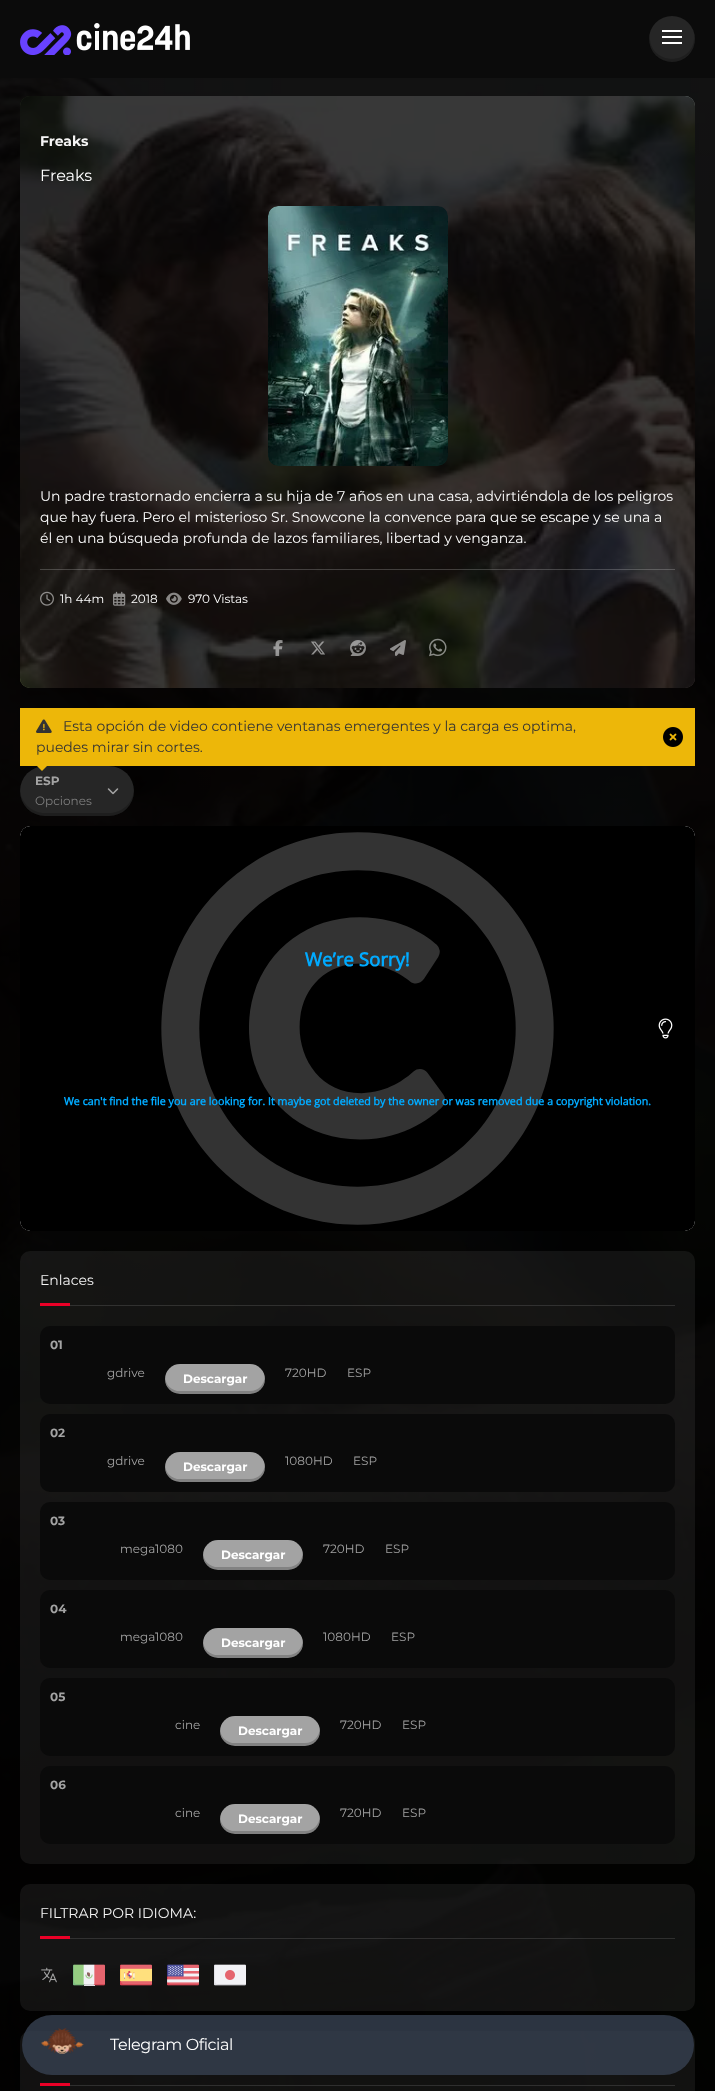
<!DOCTYPE html>
<meta charset="utf-8">
<style>body { margin: 0 } canvas { display: block }</style>
<canvas id="canvas" width="715" height="2091"></canvas>
<img id="img1" src="img_01.png" hidden>
<img id="img2" src="img_02.png" hidden>
<img id="img3" src="img_03.png" hidden>
<img id="img4" src="img_04.png" hidden>
<img id="img5" src="img_05.png" hidden>
<img id="img6" src="img_06.png" hidden>
<img id="img7" src="img_07.png" hidden>
<img id="img8" src="img_08.png" hidden>
<img id="img9" src="img_09.png" hidden>
<img id="img10" src="img_10.png" hidden>
<img id="img11" src="img_11.png" hidden>
<img id="img12" src="img_12.png" hidden>
<img id="img13" src="img_13.png" hidden>
<img id="img14" src="img_14.png" hidden>
<img id="img15" src="img_15.png" hidden>
<img id="img16" src="img_16.png" hidden>
<img id="img17" src="img_17.png" hidden>
<img id="img18" src="img_18.png" hidden>
<img id="img19" src="img_19.png" hidden>
<img id="img20" src="img_20.png" hidden>
<img id="img21" src="img_21.png" hidden>
<img id="img22" src="img_22.png" hidden>
<img id="img23" src="img_23.png" hidden>
<script>
window.onload = function () {
	const canvas = document.getElementById("canvas");
	const ctx = canvas.getContext("2d");
	ctx.miterLimit = 4;
	ctx.fontKerning = "normal";
	function txt(s, x, y) {
		ctx.fillText(s, x, y);
	}
	function fill(x, y, w, h) {
		ctx.fillRect(x, y, w, h);
	}
	function round(x, y, w, h, r) {
		ctx.beginPath();
		ctx.roundRect(x, y, w, h, r);
		ctx.fill();
	}
	function img(id, x, y, w, h) {
		ctx.drawImage(document.getElementById(id), x, y, w, h);
	}

	ctx.fillStyle = "#FFFFFF";
	fill(0, 0, 715, 2091);
	img("img1", 0, 78, 715, 2013);
	ctx.fillStyle = "#0B0B0B";
	fill(0, 0, 715, 78);
	img("img2", 20, 23, 170, 32);
	ctx.fillStyle = "#262626";
	ctx.beginPath();
	ctx.arc(672, 39, 23, 0, Math.PI * 2);
	ctx.fill();
	ctx.fillStyle = "rgba(0, 0, 0, 0.2)";
	ctx.beginPath();
	ctx.moveTo(694, 34);
	ctx.bezierCurveTo(697, 67, 647, 67, 650, 34);
	ctx.bezierCurveTo(648, 40, 649, 47, 653, 52);
	ctx.bezierCurveTo(667, 73, 700, 58, 694, 34);
	ctx.closePath();
	ctx.fill();
	ctx.fillStyle = "#FFFFFF";
	fill(662, 30, 20, 2);
	fill(662, 36, 20, 2);
	fill(662, 42, 20, 2);
	img("img3", 20, 96, 675, 592);
	ctx.fillStyle = "rgba(38, 38, 38, 0.3)";
	round(20, 96, 675, 592, 10);
	ctx.fillStyle = "rgba(0, 0, 0, 0.7)";
	round(20, 96, 675, 592, 10);
	img("img4", 268, 206, 180, 260);
	ctx.fillStyle = "rgba(255, 255, 255, 0.2)";
	fill(40, 569, 635, 1);
	img("img5", 40, 591, 14, 15);
	img("img6", 113, 591, 13, 15);
	img("img7", 166, 592, 16, 13);
	img("img8", 273, 640, 10, 16);
	img("img9", 311, 641, 14, 14);
	img("img10", 350, 640, 16, 16);
	img("img11", 390, 640, 16, 16);
	img("img12", 429, 638, 18, 19);
	ctx.fillStyle = "#EDB709";
	fill(20, 708, 675, 58);
	img("img13", 36, 719, 16, 14);
	img("img14", 663, 727, 20, 20);
	ctx.fillStyle = "#262626";
	round(20, 766, 114, 50, 25);
	ctx.fillStyle = "#EDB709";
	ctx.beginPath();
	ctx.moveTo(36, 765);
	ctx.lineTo(48, 765);
	ctx.lineTo(42, 771);
	ctx.closePath();
	ctx.fill();
	ctx.fillStyle = "rgba(0, 0, 0, 0.2)";
	ctx.beginPath();
	ctx.moveTo(20, 790);
	ctx.lineTo(20, 791);
	ctx.bezierCurveTo(20, 805, 31, 816, 45, 816);
	ctx.lineTo(109, 816);
	ctx.bezierCurveTo(123, 816, 134, 805, 134, 791);
	ctx.lineTo(134, 790);
	ctx.bezierCurveTo(133, 803, 122, 813, 109, 813);
	ctx.lineTo(45, 813);
	ctx.bezierCurveTo(32, 813, 21, 803, 20, 790);
	ctx.closePath();
	ctx.fill();
	img("img15", 107, 788, 12, 7);
	ctx.fillStyle = "#000000";
	round(20, 826, 675, 405, 10);
	img("img16", 20, 826, 675, 405);
	img("img17", 658, 1018, 15, 21);
	ctx.fillStyle = "rgba(163, 163, 163, 0.1)";
	round(20, 1251, 675, 613, 10);
	ctx.fillStyle = "#EA0027";
	fill(40, 1303, 30, 3);
	ctx.fillStyle = "rgba(163, 163, 163, 0.2)";
	fill(70, 1305, 605, 1);
	ctx.fillStyle = "#0A0A0A";
	round(40, 1326, 635, 78, 10);
	ctx.fillStyle = "#A3A3A3";
	round(165, 1364, 100, 30, 15);
	ctx.fillStyle = "rgba(0, 0, 0, 0.2)";
	ctx.beginPath();
	ctx.moveTo(165, 1376);
	ctx.bezierCurveTo(164, 1384, 169, 1392, 177, 1394);
	ctx.lineTo(253, 1394);
	ctx.bezierCurveTo(261, 1392, 266, 1385, 265, 1377);
	ctx.bezierCurveTo(264, 1384, 259, 1391, 250, 1391);
	ctx.lineTo(177, 1391);
	ctx.bezierCurveTo(169, 1389, 165, 1383, 165, 1376);
	ctx.closePath();
	ctx.fill();
	ctx.fillStyle = "#0A0A0A";
	round(40, 1414, 635, 78, 10);
	ctx.fillStyle = "#A3A3A3";
	round(165, 1452, 100, 30, 15);
	ctx.fillStyle = "rgba(0, 0, 0, 0.2)";
	ctx.beginPath();
	ctx.moveTo(165, 1464);
	ctx.bezierCurveTo(164, 1472, 169, 1480, 177, 1482);
	ctx.lineTo(253, 1482);
	ctx.bezierCurveTo(261, 1480, 266, 1473, 265, 1465);
	ctx.bezierCurveTo(264, 1472, 259, 1479, 250, 1479);
	ctx.lineTo(177, 1479);
	ctx.bezierCurveTo(169, 1477, 165, 1471, 165, 1464);
	ctx.closePath();
	ctx.fill();
	ctx.fillStyle = "#0A0A0A";
	round(40, 1502, 635, 78, 10);
	ctx.fillStyle = "#A3A3A3";
	round(203, 1540, 100, 30, 15);
	ctx.fillStyle = "rgba(0, 0, 0, 0.2)";
	ctx.beginPath();
	ctx.moveTo(203, 1552);
	ctx.bezierCurveTo(202, 1560, 207, 1568, 215, 1570);
	ctx.lineTo(291, 1570);
	ctx.bezierCurveTo(299, 1568, 304, 1561, 303, 1553);
	ctx.bezierCurveTo(302, 1560, 297, 1567, 288, 1567);
	ctx.lineTo(215, 1567);
	ctx.bezierCurveTo(207, 1565, 203, 1559, 203, 1552);
	ctx.closePath();
	ctx.fill();
	ctx.fillStyle = "#0A0A0A";
	round(40, 1590, 635, 78, 10);
	ctx.fillStyle = "#A3A3A3";
	round(203, 1628, 100, 30, 15);
	ctx.fillStyle = "rgba(0, 0, 0, 0.2)";
	ctx.beginPath();
	ctx.moveTo(203, 1640);
	ctx.bezierCurveTo(202, 1648, 207, 1656, 215, 1658);
	ctx.lineTo(291, 1658);
	ctx.bezierCurveTo(299, 1656, 304, 1649, 303, 1641);
	ctx.bezierCurveTo(302, 1648, 297, 1655, 288, 1655);
	ctx.lineTo(215, 1655);
	ctx.bezierCurveTo(207, 1653, 203, 1647, 203, 1640);
	ctx.closePath();
	ctx.fill();
	ctx.fillStyle = "#0A0A0A";
	round(40, 1678, 635, 78, 10);
	ctx.fillStyle = "#A3A3A3";
	round(220, 1716, 100, 30, 15);
	ctx.fillStyle = "rgba(0, 0, 0, 0.2)";
	ctx.beginPath();
	ctx.moveTo(220, 1728);
	ctx.bezierCurveTo(219, 1736, 224, 1744, 232, 1746);
	ctx.lineTo(308, 1746);
	ctx.bezierCurveTo(316, 1744, 321, 1737, 320, 1729);
	ctx.bezierCurveTo(319, 1736, 314, 1743, 305, 1743);
	ctx.lineTo(232, 1743);
	ctx.bezierCurveTo(224, 1741, 220, 1735, 220, 1728);
	ctx.closePath();
	ctx.fill();
	ctx.fillStyle = "#0A0A0A";
	round(40, 1766, 635, 78, 10);
	ctx.fillStyle = "#A3A3A3";
	round(220, 1804, 100, 30, 15);
	ctx.fillStyle = "rgba(0, 0, 0, 0.2)";
	ctx.beginPath();
	ctx.moveTo(220, 1816);
	ctx.bezierCurveTo(219, 1824, 224, 1832, 232, 1834);
	ctx.lineTo(308, 1834);
	ctx.bezierCurveTo(316, 1832, 321, 1825, 320, 1817);
	ctx.bezierCurveTo(319, 1824, 314, 1831, 305, 1831);
	ctx.lineTo(232, 1831);
	ctx.bezierCurveTo(224, 1829, 220, 1823, 220, 1816);
	ctx.closePath();
	ctx.fill();
	ctx.fillStyle = "rgba(163, 163, 163, 0.1)";
	round(20, 1884, 675, 127, 10);
	ctx.fillStyle = "#EA0027";
	fill(40, 1936, 30, 3);
	ctx.fillStyle = "rgba(163, 163, 163, 0.2)";
	fill(70, 1938, 605, 1);
	img("img18", 41, 1967, 16, 16);
	img("img19", 73, 1964, 32, 22);
	img("img20", 120, 1964, 32, 22);
	img("img21", 167, 1964, 32, 22);
	img("img22", 214, 1964, 32, 22);
	ctx.fillStyle = "rgba(163, 163, 163, 0.1)";
	round(20, 2031, 675, 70, 10);
	ctx.fillStyle = "#EA0027";
	fill(40, 2083, 30, 3);
	ctx.fillStyle = "#2F2F2F";
	fill(70, 2085, 605, 1);
	ctx.fillStyle = "rgba(55, 65, 81, 0.8)";
	round(22, 2015, 672, 60, 30);
	img("img23", 41, 2028, 43, 26);
	ctx.font = "bold 14px Montserrat";
	ctx.fillStyle = "#F5F5F5";
	txt("Freaks", 40, 146);
	ctx.font = "16px Montserrat";
	ctx.fillStyle = "#FFFFFF";
	txt("Freaks", 40, 181);
	ctx.font = "14px Montserrat";
	txt("Un padre trastornado encierra a su hija de 7 años en una casa, advirtiéndola de los peligros", 40, 501);
	txt("que hay fuera. Pero el misterioso Sr. Snowcone la convence para que se escape y se una a", 40, 522);
	txt("él en una búsqueda profunda de lazos familiares, libertad y venganza.", 40, 543);
	ctx.font = "12px Montserrat";
	txt("1h 44m", 60, 603);
	txt("2018", 131, 603);
	txt("970 Vistas", 188, 603);
	ctx.font = "14px Montserrat";
	ctx.fillStyle = "#333333";
	txt("Esta opción de video contiene ventanas emergentes y la carga es optima,", 63, 731);
	txt("puedes mirar sin cortes.", 36, 752);
	ctx.font = "bold 12px Montserrat";
	ctx.fillStyle = "#A3A3A3";
	txt("ESP", 35, 785);
	ctx.font = "12px Montserrat";
	ctx.fillStyle = "#7E7E7E";
	txt("Opciones", 35, 805);
	ctx.font = "14px Montserrat";
	ctx.fillStyle = "#F5F5F5";
	txt("Enlaces", 40, 1285);
	ctx.font = "bold 12px Montserrat";
	ctx.fillStyle = "#A3A3A3";
	txt("01", 50, 1349);
	ctx.font = "12px Montserrat";
	txt("gdrive", 107, 1377);
	txt("720HD", 285, 1377);
	txt("ESP", 347, 1377);
	ctx.font = "bold 12px Montserrat";
	ctx.fillStyle = "#FFFFFF";
	txt("Descargar", 183, 1383);
	ctx.fillStyle = "#A3A3A3";
	txt("02", 50, 1437);
	ctx.font = "12px Montserrat";
	txt("gdrive", 107, 1465);
	txt("1080HD", 285, 1465);
	txt("ESP", 353, 1465);
	ctx.font = "bold 12px Montserrat";
	ctx.fillStyle = "#FFFFFF";
	txt("Descargar", 183, 1471);
	ctx.fillStyle = "#A3A3A3";
	txt("03", 50, 1525);
	ctx.font = "12px Montserrat";
	txt("mega1080", 120, 1553);
	txt("720HD", 323, 1553);
	txt("ESP", 385, 1553);
	ctx.font = "bold 12px Montserrat";
	ctx.fillStyle = "#FFFFFF";
	txt("Descargar", 221, 1559);
	ctx.fillStyle = "#A3A3A3";
	txt("04", 50, 1613);
	ctx.font = "12px Montserrat";
	txt("mega1080", 120, 1641);
	txt("1080HD", 323, 1641);
	txt("ESP", 391, 1641);
	ctx.font = "bold 12px Montserrat";
	ctx.fillStyle = "#FFFFFF";
	txt("Descargar", 221, 1647);
	ctx.fillStyle = "#A3A3A3";
	txt("05", 50, 1701);
	ctx.font = "12px Montserrat";
	txt("cine", 175, 1729);
	txt("720HD", 340, 1729);
	txt("ESP", 402, 1729);
	ctx.font = "bold 12px Montserrat";
	ctx.fillStyle = "#FFFFFF";
	txt("Descargar", 238, 1735);
	ctx.fillStyle = "#A3A3A3";
	txt("06", 50, 1789);
	ctx.font = "12px Montserrat";
	txt("cine", 175, 1817);
	txt("720HD", 340, 1817);
	txt("ESP", 402, 1817);
	ctx.font = "bold 12px Montserrat";
	ctx.fillStyle = "#FFFFFF";
	txt("Descargar", 238, 1823);
	ctx.font = "14px Montserrat";
	ctx.fillStyle = "#F5F5F5";
	txt("FILTRAR POR IDIOMA:", 40, 1918);
	ctx.letterSpacing = "-0.4px";
	ctx.font = "16px Montserrat";
	ctx.fillStyle = "#FFFFFF";
	txt("Telegram Oficial", 110, 2050);
};
</script>
